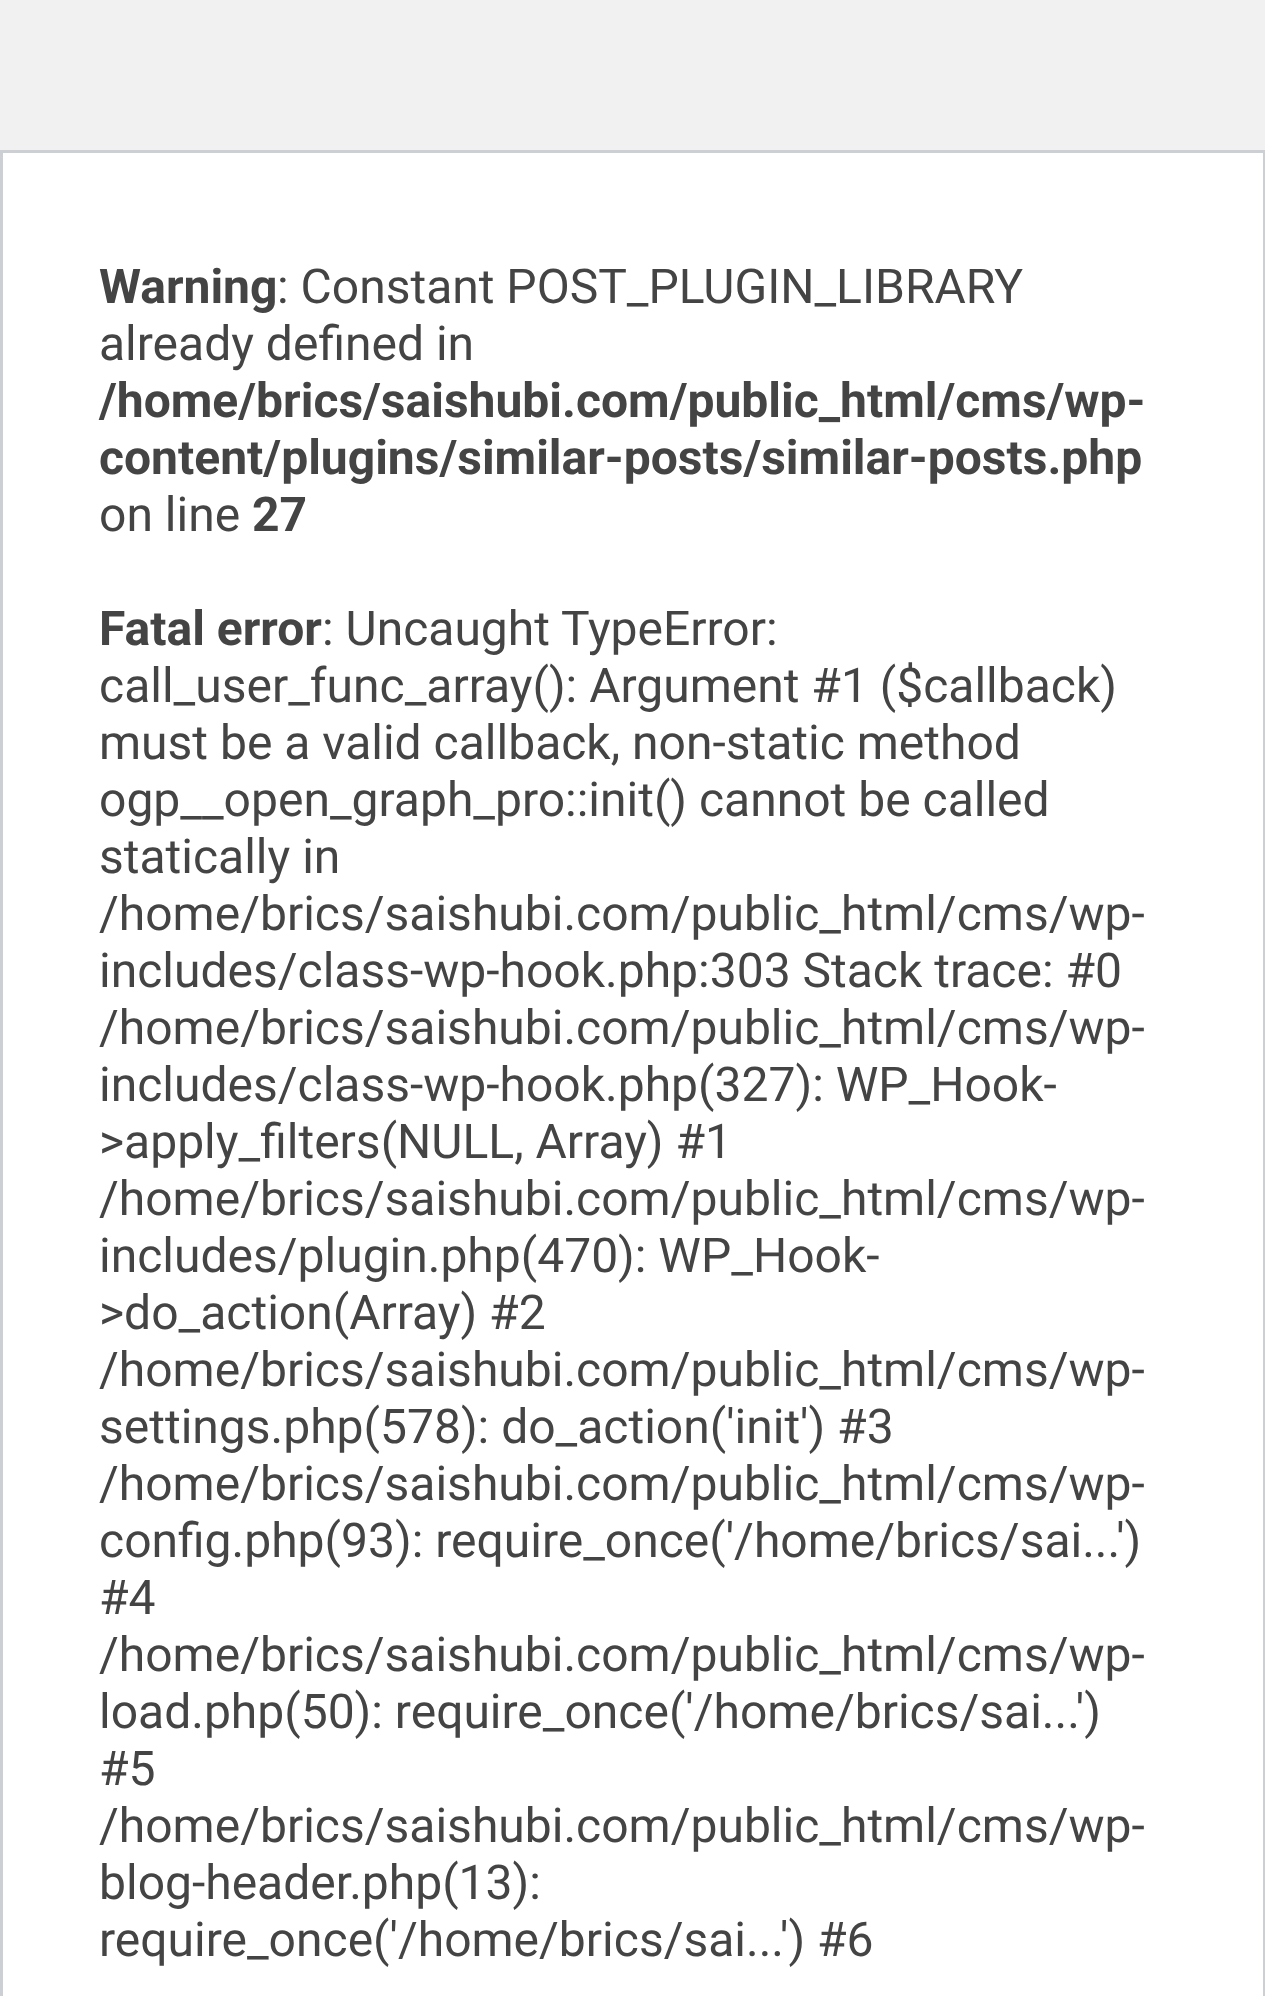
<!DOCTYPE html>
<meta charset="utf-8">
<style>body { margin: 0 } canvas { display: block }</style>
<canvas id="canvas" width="1265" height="1996"></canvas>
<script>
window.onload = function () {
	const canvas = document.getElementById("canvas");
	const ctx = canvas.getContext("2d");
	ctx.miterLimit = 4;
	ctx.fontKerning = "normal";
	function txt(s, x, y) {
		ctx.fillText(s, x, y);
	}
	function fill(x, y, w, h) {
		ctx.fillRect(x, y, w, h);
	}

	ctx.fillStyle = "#F1F1F1";
	fill(0, 0, 1265, 1996);
	ctx.fillStyle = "#FFFFFF";
	ctx.beginPath();
	ctx.rect(1.5, 151.5, 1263, 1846);
	ctx.fill();
	ctx.strokeStyle = "#CCD0D4";
	ctx.lineWidth = 3;
	ctx.stroke();
	ctx.font = "bold 48px Roboto";
	ctx.fillStyle = "#444444";
	txt("Warning", 99, 303);
	ctx.font = "48px Roboto";
	txt(": Constant POST_PLUGIN_LIBRARY", 277, 303);
	txt("already defined in", 99, 360);
	ctx.font = "bold 48px Roboto";
	txt("/home/brics/saishubi.com/public_html/cms/wp-", 99, 417);
	txt("content/plugins/similar-posts/similar-posts.php", 99, 474);
	ctx.font = "48px Roboto";
	txt("on line", 99, 531);
	ctx.font = "bold 48px Roboto";
	txt("27", 252, 531);
	txt("Fatal error", 99, 645);
	ctx.font = "48px Roboto";
	txt(": Uncaught TypeError:", 322, 645);
	txt("call_user_func_array(): Argument #1 ($callback)", 99, 702);
	txt("must be a valid callback, non-static method", 99, 759);
	txt("ogp__open_graph_pro::init() cannot be called", 99, 816);
	txt("statically in", 99, 873);
	txt("/home/brics/saishubi.com/public_html/cms/wp-", 99, 930);
	txt("includes/class-wp-hook.php:303 Stack trace: #0", 99, 987);
	txt("/home/brics/saishubi.com/public_html/cms/wp-", 99, 1044);
	txt("includes/class-wp-hook.php(327): WP_Hook-", 99, 1101);
	txt(">apply_filters(NULL, Array) #1", 99, 1158);
	txt("/home/brics/saishubi.com/public_html/cms/wp-", 99, 1215);
	txt("includes/plugin.php(470): WP_Hook-", 99, 1272);
	txt(">do_action(Array) #2", 99, 1329);
	txt("/home/brics/saishubi.com/public_html/cms/wp-", 99, 1386);
	txt("settings.php(578): do_action('init') #3", 99, 1443);
	txt("/home/brics/saishubi.com/public_html/cms/wp-", 99, 1500);
	txt("config.php(93): require_once('/home/brics/sai...')", 99, 1557);
	txt("#4", 99, 1614);
	txt("/home/brics/saishubi.com/public_html/cms/wp-", 99, 1671);
	txt("load.php(50): require_once('/home/brics/sai...')", 99, 1728);
	txt("#5", 99, 1785);
	txt("/home/brics/saishubi.com/public_html/cms/wp-", 99, 1842);
	txt("blog-header.php(13):", 99, 1899);
	txt("require_once('/home/brics/sai...') #6", 99, 1956);
};
</script>
